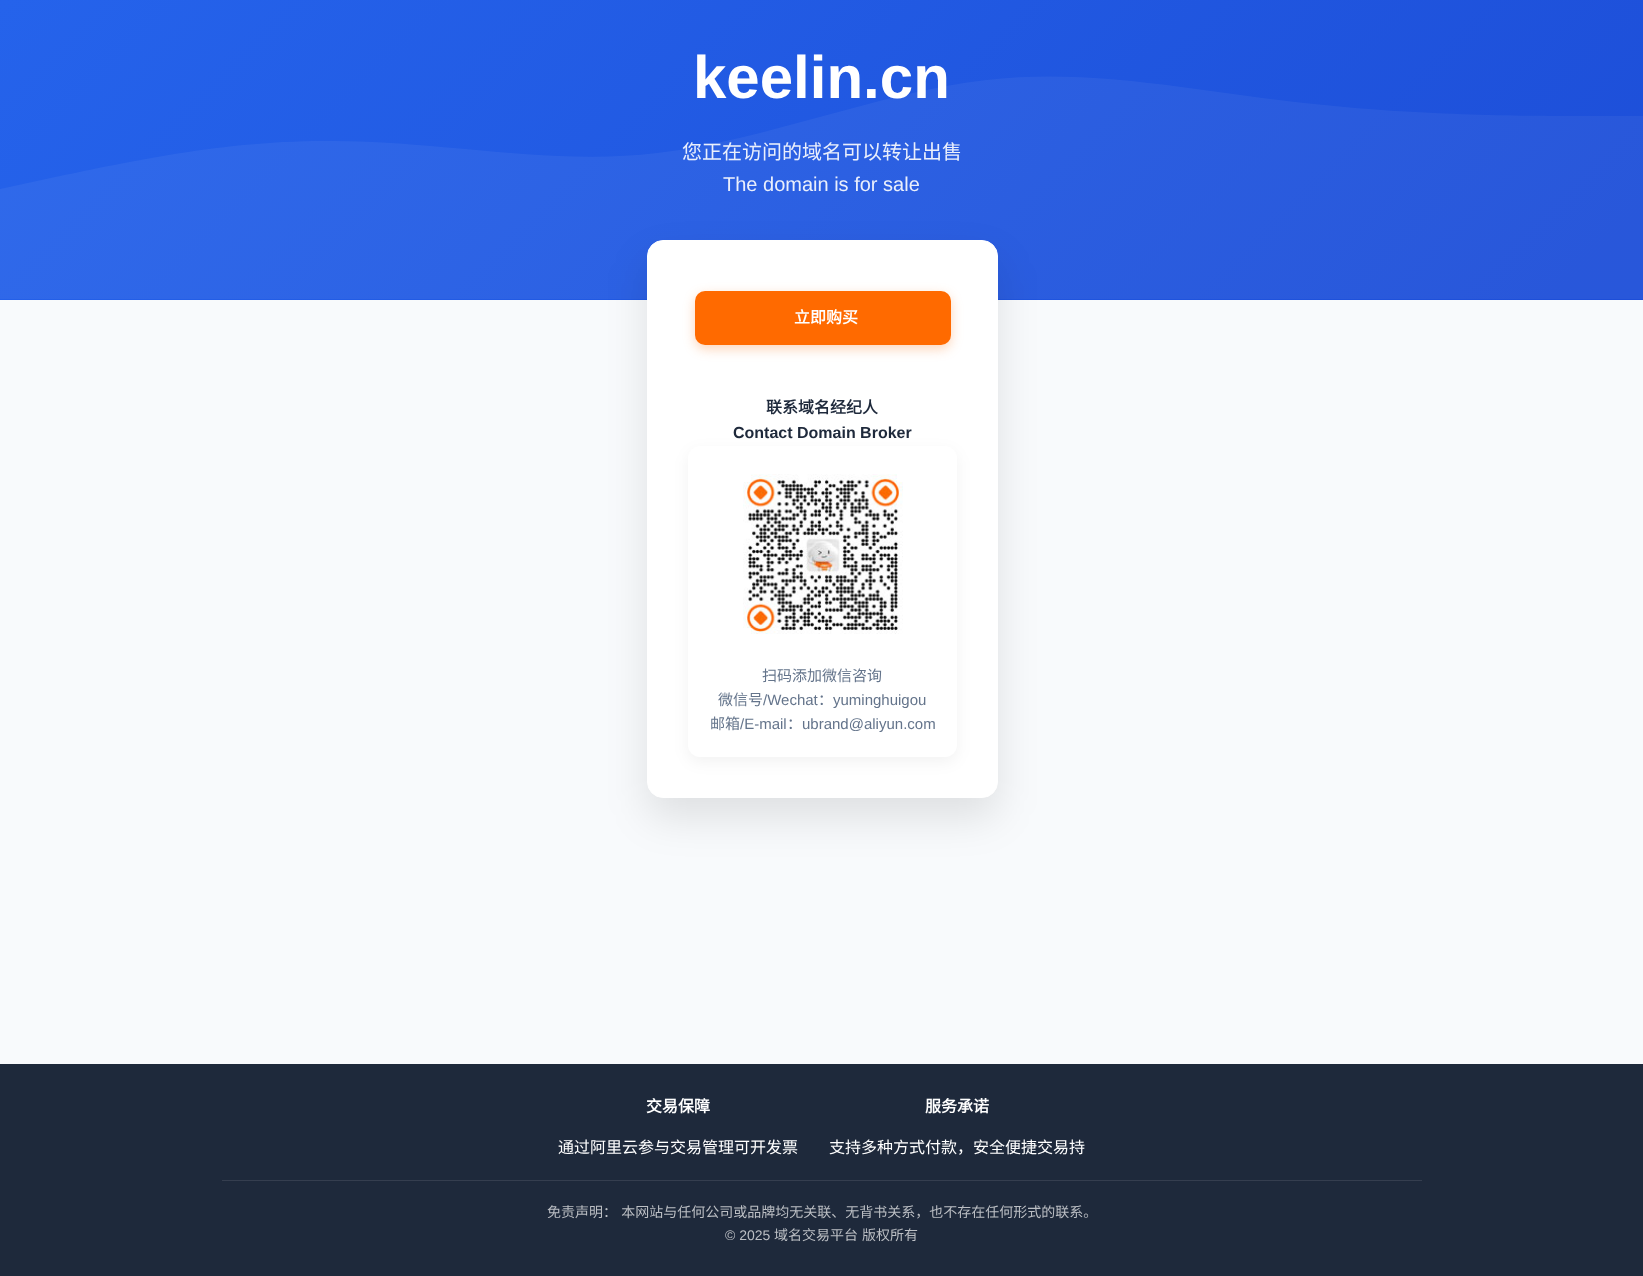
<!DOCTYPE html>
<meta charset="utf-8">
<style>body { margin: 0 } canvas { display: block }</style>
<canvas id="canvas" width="1643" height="1276"></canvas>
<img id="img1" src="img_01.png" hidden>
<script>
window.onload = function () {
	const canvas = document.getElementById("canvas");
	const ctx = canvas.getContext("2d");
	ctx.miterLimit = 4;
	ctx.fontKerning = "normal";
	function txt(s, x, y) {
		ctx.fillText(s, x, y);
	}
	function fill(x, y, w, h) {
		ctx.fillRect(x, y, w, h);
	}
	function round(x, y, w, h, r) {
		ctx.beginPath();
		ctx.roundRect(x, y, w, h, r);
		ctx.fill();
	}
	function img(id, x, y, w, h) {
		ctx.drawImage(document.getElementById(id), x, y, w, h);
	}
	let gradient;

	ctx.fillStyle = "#F8FAFC";
	fill(0, 0, 1643, 1276);
	gradient = ctx.createLinearGradient(336, -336, 1307, 636);
	gradient.addColorStop(0, "#2563EB");
	gradient.addColorStop(1, "#1D4ED8");
	ctx.fillStyle = gradient;
	fill(0, 0, 1643, 300);
	ctx.fillStyle = "rgba(255, 255, 255, 0.05)";
	ctx.beginPath();
	ctx.moveTo(0, 189);
	ctx.lineTo(55, 177);
	ctx.bezierCurveTo(110, 166, 219, 140, 329, 141);
	ctx.bezierCurveTo(438, 140, 548, 166, 657, 153);
	ctx.bezierCurveTo(767, 140, 876, 93, 986, 80);
	ctx.bezierCurveTo(1095, 67, 1205, 93, 1314, 104);
	ctx.bezierCurveTo(1424, 116, 1533, 116, 1588, 116);
	ctx.lineTo(1643, 116);
	ctx.lineTo(1643, 299);
	ctx.lineTo(0, 299);
	ctx.closePath();
	ctx.fill();
	ctx.fillStyle = "rgba(0, 0, 0, 0.1)";
	ctx.filter = "blur(20px)";
	ctx.beginPath();
	ctx.roundRect(647, 260, 351, 558, 16);
	ctx.fill();
	ctx.filter = "none";
	ctx.fillStyle = "#FFFFFF";
	ctx.beginPath();
	ctx.roundRect(647.5, 240.5, 350, 557, 15.5);
	ctx.fill();
	ctx.strokeStyle = "#FFFFFF";
	ctx.stroke();
	ctx.fillStyle = "rgba(249, 115, 22, 0.3)";
	ctx.filter = "blur(6px)";
	ctx.beginPath();
	ctx.roundRect(695, 295, 256, 54, 10);
	ctx.fill();
	ctx.filter = "none";
	ctx.fillStyle = "#FF6A00";
	round(695, 291, 256, 54, 10);
	ctx.fillStyle = "rgba(0, 0, 0, 0.05)";
	ctx.filter = "blur(7.5px)";
	ctx.beginPath();
	ctx.roundRect(688, 451, 269, 311, 12);
	ctx.fill();
	ctx.filter = "none";
	ctx.fillStyle = "#FFFFFF";
	round(688, 446, 269, 311, 12);
	img("img1", 743, 474, 160, 160);
	ctx.fillStyle = "#1E293B";
	fill(0, 1064, 1643, 212);
	ctx.fillStyle = "#353E4F";
	fill(222, 1180, 1200, 1);
	ctx.font = "bold 60px Liberation Sans";
	ctx.fillStyle = "#FFFFFF";
	txt("keelin.cn", 693, 98);
	ctx.font = "20px Noto Sans CJK SC";
	ctx.fillStyle = "#EAEFFC";
	txt("您正在访问的域名可以转让出售", 682, 159);
	ctx.font = "20px Liberation Sans";
	txt("The domain is for sale", 723, 191);
	ctx.font = "bold 16px Noto Sans CJK SC";
	ctx.fillStyle = "#FFFFFF";
	txt("立即购买", 794, 323);
	ctx.fillStyle = "#1E293B";
	txt("联系域名经纪人", 766, 413);
	ctx.font = "bold 16px Liberation Sans";
	txt("Contact Domain Broker", 733, 438);
	ctx.font = "15px Noto Sans CJK SC";
	ctx.fillStyle = "#64748B";
	txt("扫码添加微信咨询", 762, 681);
	txt("微信号", 718, 705);
	ctx.font = "15px Liberation Sans";
	txt("/Wechat", 763, 705);
	ctx.font = "15px Noto Sans CJK SC";
	txt("：", 818, 705);
	ctx.font = "15px Liberation Sans";
	txt("yuminghuigou", 833, 705);
	ctx.font = "15px Noto Sans CJK SC";
	txt("邮箱", 710, 729);
	ctx.font = "15px Liberation Sans";
	txt("/E-mail", 740, 729);
	ctx.font = "15px Noto Sans CJK SC";
	txt("：", 787, 729);
	ctx.font = "15px Liberation Sans";
	txt("ubrand@aliyun.com", 802, 729);
	ctx.font = "bold 16px Noto Sans CJK SC";
	ctx.fillStyle = "#FFFFFF";
	txt("交易保障", 646, 1112);
	ctx.font = "16px Noto Sans CJK SC";
	txt("通过阿里云参与交易管理可开发票", 558, 1153);
	ctx.font = "bold 16px Noto Sans CJK SC";
	txt("服务承诺", 925, 1112);
	ctx.font = "16px Noto Sans CJK SC";
	txt("支持多种方式付款，安全便捷交易持", 829, 1153);
	ctx.wordSpacing = "1px";
	ctx.font = "14px Noto Sans CJK SC";
	ctx.fillStyle = "#BCBFC4";
	txt("免责声明： 本网站与任何公司或品牌均无关联、无背书关系，也不存在任何形式的联系。", 547, 1217);
	ctx.wordSpacing = "0px";
	ctx.font = "14px Liberation Sans";
	txt("© 2025", 725, 1240);
	ctx.font = "14px Noto Sans CJK SC";
	txt("域名交易平台", 774, 1240);
	txt("版权所有", 862, 1240);
};
</script>
